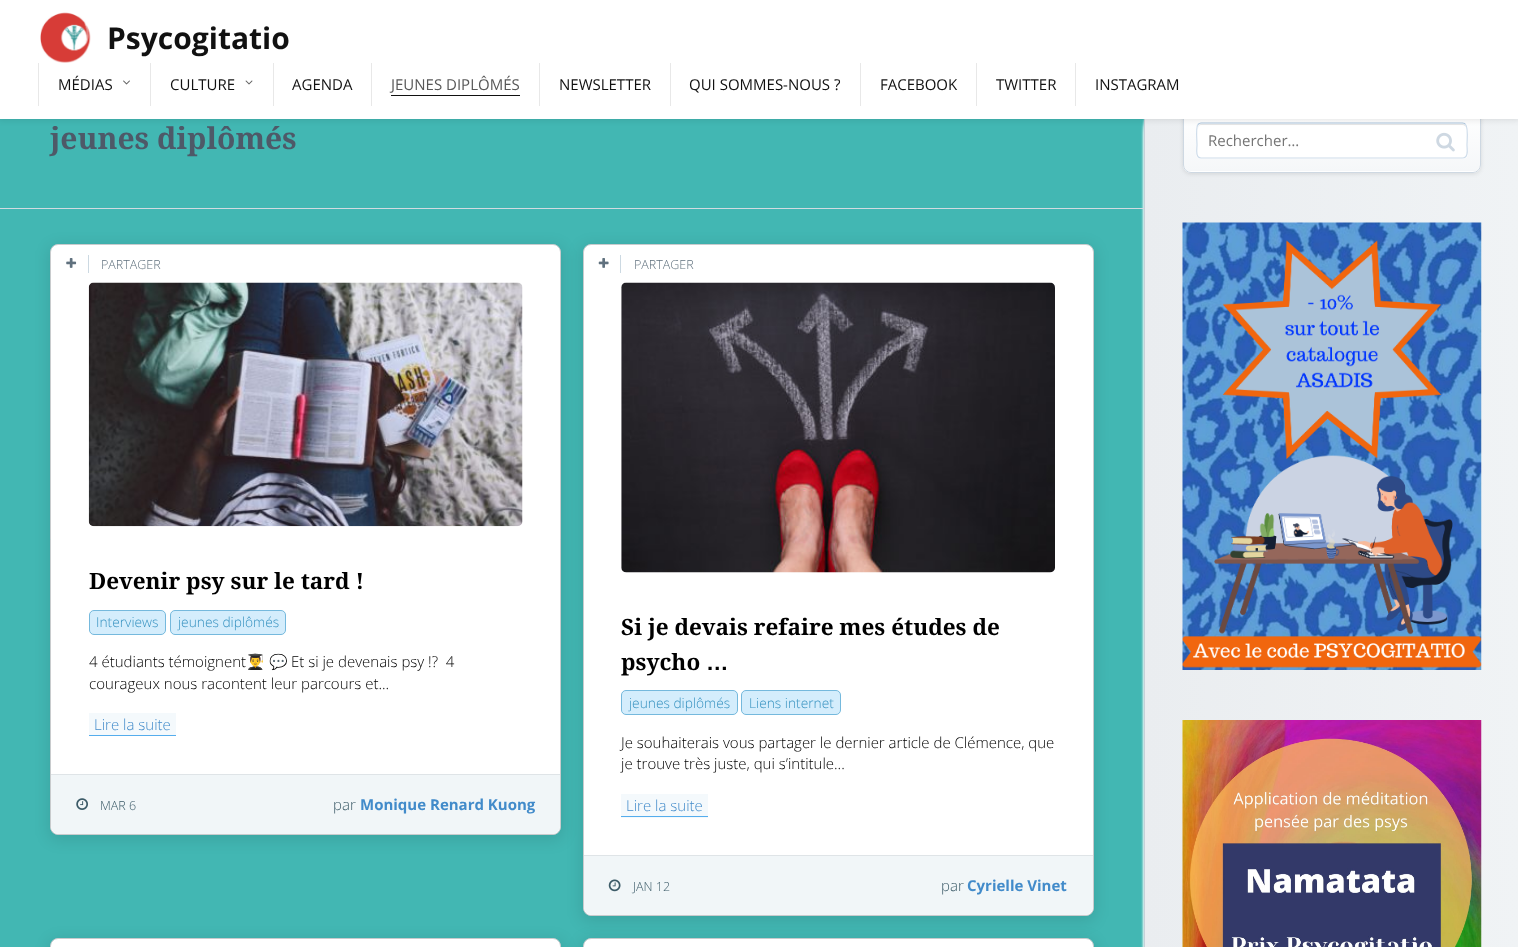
<!DOCTYPE html>
<meta charset="utf-8">
<style>body { margin: 0 } canvas { display: block }</style>
<canvas id="canvas" width="1518" height="947"></canvas>
<img id="img1" src="img_01.png" hidden>
<img id="img2" src="img_02.png" hidden>
<img id="img3" src="img_03.png" hidden>
<img id="img4" src="img_04.png" hidden>
<img id="img5" src="img_05.png" hidden>
<img id="img6" src="img_06.png" hidden>
<img id="img7" src="img_07.png" hidden>
<img id="img8" src="img_08.png" hidden>
<img id="img9" src="img_09.png" hidden>
<img id="img10" src="img_10.png" hidden>
<img id="img11" src="img_11.png" hidden>
<img id="img12" src="img_12.png" hidden>
<script>
window.onload = function () {
	const canvas = document.getElementById("canvas");
	const ctx = canvas.getContext("2d");
	ctx.miterLimit = 4;
	ctx.fontKerning = "normal";
	function txt(s, x, y) {
		ctx.fillText(s, x, y);
	}
	function fill(x, y, w, h) {
		ctx.fillRect(x, y, w, h);
	}
	function round(x, y, w, h, r) {
		ctx.beginPath();
		ctx.roundRect(x, y, w, h, r);
		ctx.fill();
	}
	function img(id, x, y, w, h) {
		ctx.drawImage(document.getElementById(id), x, y, w, h);
	}
	let gradient;

	ctx.fillStyle = "#42B7B3";
	fill(0, 0, 1518, 947);
	ctx.fillStyle = "#FFFFFF";
	ctx.filter = "blur(1px)";
	ctx.beginPath();
	ctx.roundRect(1143, 71, 375, 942, 63);
	ctx.fill();
	ctx.filter = "none";
	gradient = ctx.createLinearGradient(1145, 869, 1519, 869);
	gradient.addColorStop(0, "#EAEDF0");
	gradient.addColorStop(1, "#F0F3F5");
	ctx.fillStyle = gradient;
	fill(1145, 119, 373, 828);
	ctx.fillStyle = "#C7D1D8";
	fill(1144, 119, 1, 828);
	ctx.fillStyle = "rgba(0, 0, 0, 0.1)";
	ctx.filter = "blur(2px)";
	ctx.beginPath();
	ctx.roundRect(1183, 110, 298, 64, 8);
	ctx.fill();
	ctx.filter = "none";
	ctx.fillStyle = "#FFFFFF";
	round(1183, 109, 298, 64, 8);
	ctx.save();
	ctx.beginPath();
	ctx.roundRect(1183, 109, 298, 64, 8);
	ctx.clip();
	gradient = ctx.createLinearGradient(1332, 110, 1332, 171);
	gradient.addColorStop(0, "#FFFFFF");
	gradient.addColorStop(1, "#F5F7F9");
	ctx.fillStyle = gradient;
	fill(1183, 119, 298, 52);
	ctx.restore();
	ctx.beginPath();
	ctx.roundRect(1183.5, 109.5, 297, 63, 7.5);
	ctx.strokeStyle = "#CED8E2";
	ctx.stroke();
	round(1196, 123, 272, 36, 5);
	ctx.fillStyle = "#E6E6E6";
	ctx.beginPath();
	ctx.moveTo(1201, 125);
	ctx.lineTo(1462, 125);
	ctx.bezierCurveTo(1465, 125, 1466, 127, 1466, 129);
	ctx.bezierCurveTo(1466, 126, 1465, 124, 1462, 124);
	ctx.lineTo(1202, 124);
	ctx.bezierCurveTo(1199, 124, 1198, 126, 1198, 129);
	ctx.bezierCurveTo(1198, 127, 1199, 125, 1201, 125);
	ctx.closePath();
	ctx.fill();
	ctx.beginPath();
	ctx.moveTo(1198, 124.5);
	ctx.bezierCurveTo(1199, 123.5, 1200, 123, 1201, 123);
	ctx.lineTo(1462.5, 123);
	ctx.bezierCurveTo(1463.5, 123, 1465, 123.5, 1465.5, 124.5);
	ctx.strokeStyle = "#AAC3DB";
	ctx.lineWidth = 1.2;
	ctx.stroke();
	ctx.beginPath();
	ctx.moveTo(1465.5, 124.5);
	ctx.bezierCurveTo(1468.5, 127, 1467, 141, 1467, 145);
	ctx.bezierCurveTo(1467, 148.5, 1469, 158, 1462.5, 158);
	ctx.lineTo(1201, 158);
	ctx.bezierCurveTo(1195, 158, 1197, 148.5, 1197, 145);
	ctx.bezierCurveTo(1197, 141, 1195.5, 127, 1198, 124.5);
	ctx.strokeStyle = "#CEDCEA";
	ctx.stroke();
	ctx.fillStyle = "rgba(0, 0, 0, 0.1)";
	ctx.filter = "blur(3px)";
	ctx.beginPath();
	ctx.rect(-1, -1, 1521, 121);
	ctx.fill();
	ctx.filter = "none";
	ctx.fillStyle = "#FFFFFF";
	fill(0, 0, 1518, 119);
	img("img1", 40, 12, 51, 51);
	ctx.fillStyle = "#E8E8E8";
	fill(38, 63, 1, 43);
	img("img2", 123, 80, 7, 5);
	fill(150, 63, 1, 43);
	img("img3", 245, 80, 8, 5);
	fill(273, 63, 1, 43);
	fill(371, 63, 1, 43);
	ctx.fillStyle = "#111111";
	fill(391, 95, 129, 1);
	ctx.fillStyle = "#E8E8E8";
	fill(539, 63, 1, 43);
	fill(670, 63, 1, 43);
	fill(860, 63, 1, 43);
	fill(976, 63, 1, 43);
	fill(1075, 63, 1, 43);
	ctx.fillStyle = "#D1DBE1";
	fill(0, 208, 1144, 1);
	ctx.fillStyle = "rgba(0, 0, 0, 0.1)";
	ctx.filter = "blur(7.5px)";
	ctx.beginPath();
	ctx.roundRect(49, 246, 514, 594, 9);
	ctx.fill();
	ctx.filter = "none";
	ctx.fillStyle = "#FFFFFF";
	ctx.beginPath();
	ctx.roundRect(50.5, 244.5, 510, 590, 7.5);
	ctx.fill();
	ctx.strokeStyle = "#C8CBCD";
	ctx.lineWidth = 1;
	ctx.stroke();
	img("img4", 66, 258, 11, 10);
	ctx.fillStyle = "#CCD9E2";
	fill(88, 255, 1, 18);
	img("img5", 88, 282, 435, 245);
	ctx.fillStyle = "#D4EDFC";
	ctx.beginPath();
	ctx.roundRect(89.5, 610.5, 76, 24, 4.5);
	ctx.fill();
	ctx.strokeStyle = "#75B9DD";
	ctx.stroke();
	ctx.beginPath();
	ctx.roundRect(170.5, 610.5, 115, 24, 4.5);
	ctx.fill();
	ctx.stroke();
	ctx.fillStyle = "#F4F9FC";
	fill(89, 713, 87, 22);
	ctx.fillStyle = "#55ADED";
	fill(89, 735, 87, 1);
	ctx.fillStyle = "#F1F6F8";
	ctx.beginPath();
	ctx.roundRect(51, 774, 509, 60, [0, 0, 8, 8]);
	ctx.fill();
	ctx.fillStyle = "#DFE4E7";
	fill(51, 774, 509, 1);
	img("img6", 76, 798, 12, 12);
	ctx.fillStyle = "rgba(0, 0, 0, 0.1)";
	ctx.filter = "blur(7.5px)";
	ctx.beginPath();
	ctx.roundRect(581, 246, 514, 675, 9);
	ctx.fill();
	ctx.filter = "none";
	ctx.fillStyle = "#FFFFFF";
	ctx.beginPath();
	ctx.roundRect(583.5, 244.5, 510, 671, 7.5);
	ctx.fill();
	ctx.strokeStyle = "#C8CBCD";
	ctx.stroke();
	img("img7", 598, 258, 11, 10);
	ctx.fillStyle = "#CCD9E2";
	fill(620, 255, 1, 18);
	img("img8", 621, 282, 434, 291);
	ctx.fillStyle = "#D4EDFC";
	ctx.beginPath();
	ctx.roundRect(621.5, 690.5, 116, 24, 4.5);
	ctx.fill();
	ctx.strokeStyle = "#75B9DD";
	ctx.stroke();
	ctx.beginPath();
	ctx.roundRect(741.5, 690.5, 99, 24, 4.5);
	ctx.fill();
	ctx.stroke();
	ctx.fillStyle = "#F4F9FC";
	fill(621, 794, 87, 24);
	ctx.fillStyle = "#55ADED";
	fill(621, 816, 87, 1);
	ctx.fillStyle = "#F1F6F8";
	ctx.beginPath();
	ctx.roundRect(584, 855, 509, 60, [0, 0, 8, 8]);
	ctx.fill();
	ctx.fillStyle = "#DFE4E7";
	fill(584, 855, 509, 1);
	img("img9", 608, 879, 13, 13);
	ctx.fillStyle = "rgba(0, 0, 0, 0.1)";
	ctx.filter = "blur(7.5px)";
	ctx.beginPath();
	ctx.roundRect(49, 940, 514, 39, 9);
	ctx.fill();
	ctx.filter = "none";
	ctx.fillStyle = "#FFFFFF";
	ctx.beginPath();
	ctx.roundRect(50.5, 938.5, 510, 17, 7.5);
	ctx.fill();
	ctx.strokeStyle = "#C8CBCD";
	ctx.stroke();
	ctx.fillStyle = "rgba(0, 0, 0, 0.1)";
	ctx.filter = "blur(7.5px)";
	ctx.beginPath();
	ctx.roundRect(581, 940, 514, 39, 9);
	ctx.fill();
	ctx.filter = "none";
	ctx.fillStyle = "#FFFFFF";
	ctx.beginPath();
	ctx.roundRect(583.5, 938.5, 510, 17, 7.5);
	ctx.fill();
	ctx.stroke();
	img("img10", 1436, 132, 19, 20);
	img("img11", 1182, 222, 300, 448);
	img("img12", 1182, 720, 300, 227);
	ctx.font = "bold 30px Open Sans";
	ctx.fillStyle = "#111111";
	txt("Psycogitatio", 107, 49);
	ctx.font = "15px Open Sans";
	txt("MÉDIAS", 58, 90);
	txt("CULTURE", 170, 90);
	txt("AGENDA", 292, 90);
	ctx.fillStyle = "#585858";
	txt("JEUNES DIPLÔMÉS", 391, 90);
	ctx.fillStyle = "#111111";
	txt("NEWSLETTER", 559, 90);
	txt("QUI SOMMES-NOUS ?", 689, 90);
	txt("FACEBOOK", 880, 90);
	txt("TWITTER", 996, 90);
	txt("INSTAGRAM", 1095, 90);
	ctx.font = "bold 30px Droid Serif";
	ctx.fillStyle = "#4E5968";
	txt("jeunes diplômés", 50, 149);
	ctx.font = "300 12.5px Open Sans";
	ctx.fillStyle = "#60717E";
	txt("PARTAGER", 101, 269);
	ctx.font = "bold 22.5px Droid Serif";
	ctx.fillStyle = "#000000";
	txt("Devenir psy sur le tard !", 89, 589);
	ctx.font = "300 13.75px Open Sans";
	ctx.fillStyle = "#3893C1";
	txt("Interviews", 96, 627);
	txt("jeunes diplômés", 178, 627);
	ctx.font = "300 15px Open Sans";
	ctx.fillStyle = "#000000";
	txt("4 étudiants témoignent", 89, 667);
	ctx.font = "15px Noto Color Emoji";
	txt("👨‍🎓", 246, 667);
	txt("💬", 269, 667);
	ctx.font = "300 15px Open Sans";
	txt("Et si je devenais psy !?  4", 291, 667);
	txt("courageux nous racontent leur parcours et...", 89, 689);
	ctx.fillStyle = "#428BCA";
	txt("Lire la suite", 94, 730);
	ctx.font = "300 12.5px Open Sans";
	ctx.fillStyle = "#3C5B68";
	txt("MAR 6", 100, 810);
	ctx.font = "300 15px Open Sans";
	txt("par", 333, 810);
	ctx.font = "bold 15px Open Sans";
	ctx.fillStyle = "#428BCA";
	txt("Monique Renard Kuong", 360, 810);
	ctx.font = "300 12.5px Open Sans";
	ctx.fillStyle = "#60717E";
	txt("PARTAGER", 634, 269);
	ctx.font = "bold 22.5px Droid Serif";
	ctx.fillStyle = "#000000";
	txt("Si je devais refaire mes études de", 621, 635);
	txt("psycho", 621, 670);
	ctx.font = "bold 22.5px Liberation Sans";
	txt("…", 706, 670);
	ctx.font = "300 13.75px Open Sans";
	ctx.fillStyle = "#3893C1";
	txt("jeunes diplômés", 629, 708);
	txt("Liens internet", 749, 708);
	ctx.font = "300 15px Open Sans";
	ctx.fillStyle = "#000000";
	txt("Je souhaiterais vous partager le dernier article de Clémence, que", 621, 748);
	txt("je trouve très juste, qui s’intitule...", 621, 769);
	ctx.fillStyle = "#428BCA";
	txt("Lire la suite", 626, 811);
	ctx.font = "300 12.5px Open Sans";
	ctx.fillStyle = "#3C5B68";
	txt("JAN 12", 633, 891);
	ctx.font = "300 15px Open Sans";
	txt("par", 941, 891);
	ctx.font = "bold 15px Open Sans";
	ctx.fillStyle = "#428BCA";
	txt("Cyrielle Vinet", 967, 891);
	ctx.font = "15px Open Sans";
	ctx.fillStyle = "#757575";
	txt("Rechercher…", 1208, 146);
};
</script>
